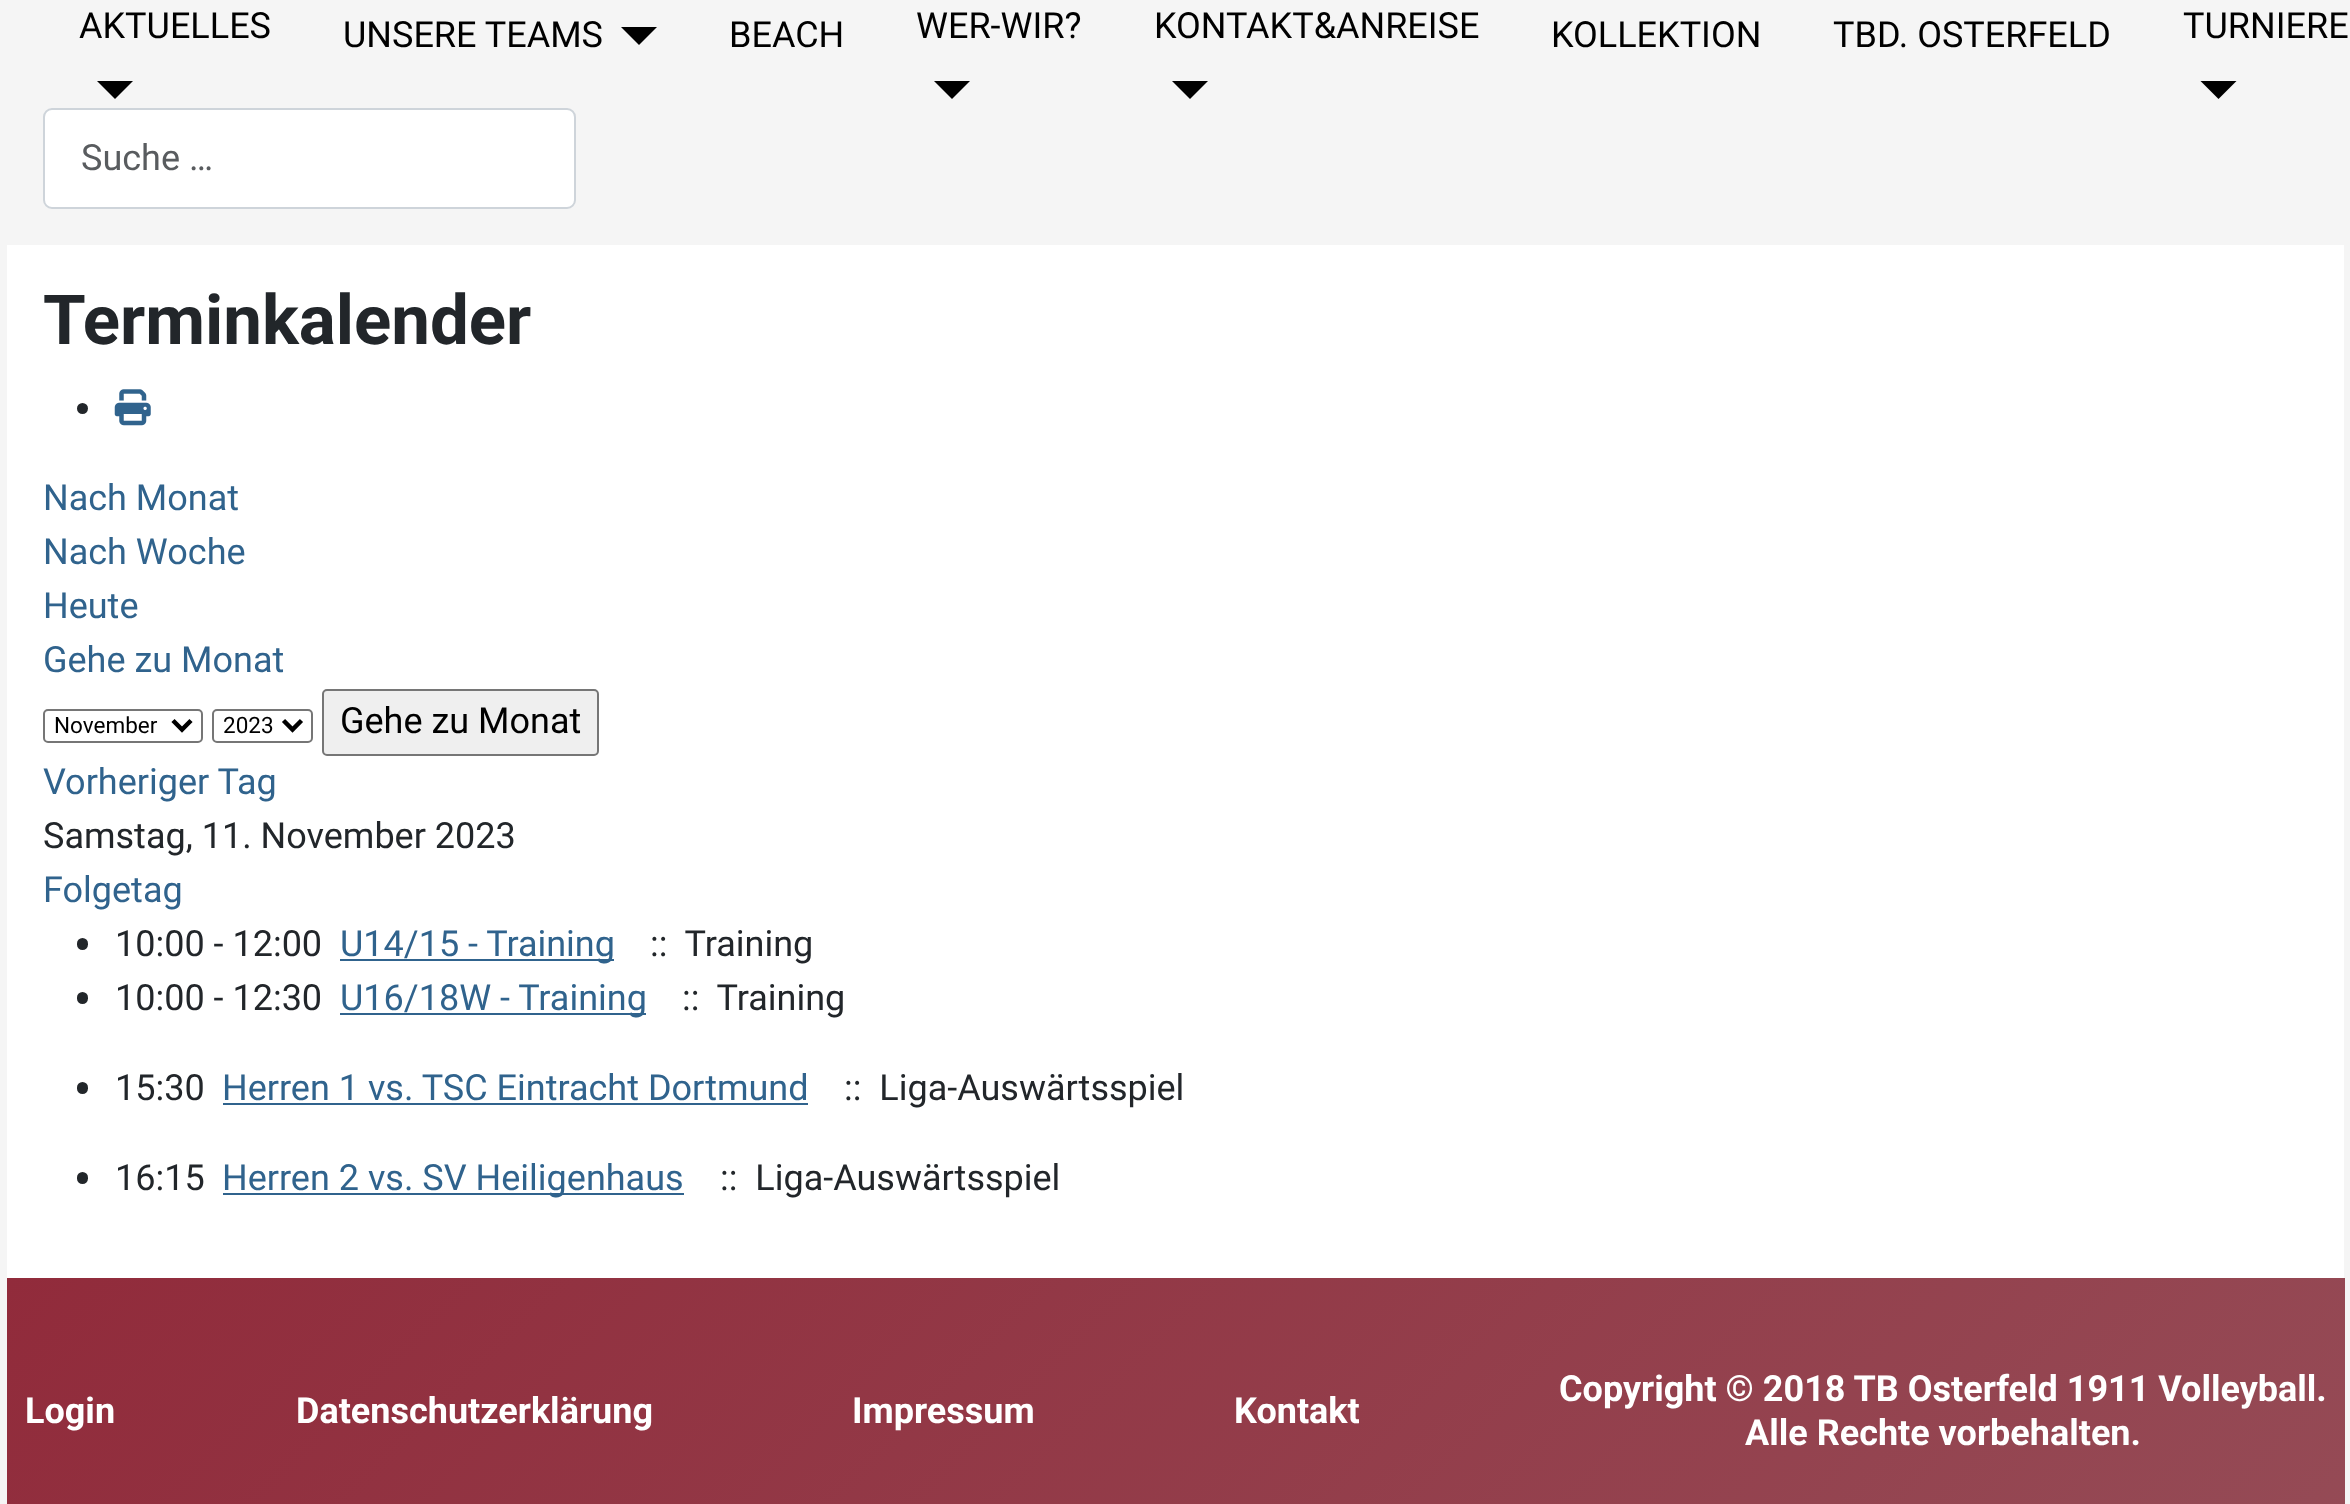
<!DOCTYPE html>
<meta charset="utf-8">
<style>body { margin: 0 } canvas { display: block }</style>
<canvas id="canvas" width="2350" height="1504"></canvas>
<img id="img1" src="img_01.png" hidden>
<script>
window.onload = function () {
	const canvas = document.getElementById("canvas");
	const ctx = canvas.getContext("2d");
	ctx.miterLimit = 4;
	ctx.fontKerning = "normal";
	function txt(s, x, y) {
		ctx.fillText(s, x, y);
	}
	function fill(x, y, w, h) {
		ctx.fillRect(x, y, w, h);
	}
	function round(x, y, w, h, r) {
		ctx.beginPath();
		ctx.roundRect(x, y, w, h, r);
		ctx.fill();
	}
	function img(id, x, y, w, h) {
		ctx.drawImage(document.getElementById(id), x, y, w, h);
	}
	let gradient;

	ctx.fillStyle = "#FFFFFF";
	fill(0, 0, 2350, 1504);
	ctx.strokeStyle = "#F5F5F5";
	ctx.lineWidth = 7;
	ctx.strokeRect(3.5, -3.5, 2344, 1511);
	ctx.fillStyle = "#F5F5F5";
	fill(7, 0, 2337, 245);
	ctx.fillStyle = "#000000";
	ctx.beginPath();
	ctx.moveTo(97, 81);
	ctx.lineTo(133, 81);
	ctx.lineTo(115, 99);
	ctx.closePath();
	ctx.fill();
	ctx.beginPath();
	ctx.moveTo(621, 27);
	ctx.lineTo(657, 27);
	ctx.lineTo(639, 45);
	ctx.closePath();
	ctx.fill();
	ctx.beginPath();
	ctx.moveTo(934, 81);
	ctx.lineTo(970, 81);
	ctx.lineTo(952, 99);
	ctx.closePath();
	ctx.fill();
	ctx.beginPath();
	ctx.moveTo(1172, 81);
	ctx.lineTo(1208, 81);
	ctx.lineTo(1190, 99);
	ctx.closePath();
	ctx.fill();
	ctx.beginPath();
	ctx.moveTo(2200.5, 81);
	ctx.lineTo(2236.5, 81);
	ctx.lineTo(2218.5, 99);
	ctx.closePath();
	ctx.fill();
	ctx.fillStyle = "#FFFFFF";
	ctx.beginPath();
	ctx.roundRect(44, 109, 531, 99, 8);
	ctx.fill();
	ctx.strokeStyle = "#CED4DA";
	ctx.lineWidth = 2;
	ctx.stroke();
	ctx.fillStyle = "#22262A";
	ctx.beginPath();
	ctx.arc(82.5, 408.5, 5.5, 0, Math.PI * 2);
	ctx.fill();
	img("img1", 114, 389, 37, 37);
	ctx.beginPath();
	ctx.roundRect(44, 710, 158, 32, 4);
	ctx.strokeStyle = "#767676";
	ctx.stroke();
	ctx.beginPath();
	ctx.moveTo(173, 720.5);
	ctx.lineTo(182, 729.5);
	ctx.lineTo(191, 720.5);
	ctx.strokeStyle = "#000000";
	ctx.lineWidth = 4.5;
	ctx.stroke();
	ctx.beginPath();
	ctx.roundRect(213, 710, 99, 32, 4);
	ctx.strokeStyle = "#767676";
	ctx.lineWidth = 2;
	ctx.stroke();
	ctx.beginPath();
	ctx.moveTo(283.5, 720.5);
	ctx.lineTo(292.5, 729.5);
	ctx.lineTo(301.5, 720.5);
	ctx.strokeStyle = "#000000";
	ctx.lineWidth = 4.5;
	ctx.stroke();
	ctx.fillStyle = "#EFEFEF";
	ctx.beginPath();
	ctx.roundRect(323, 690, 275, 65, 4);
	ctx.fill();
	ctx.strokeStyle = "#767676";
	ctx.lineWidth = 2;
	ctx.stroke();
	ctx.fillStyle = "#22262A";
	round(77, 938, 11, 12, 5.5);
	ctx.fillStyle = "#30638D";
	fill(340, 959, 274, 2);
	ctx.fillStyle = "#22262A";
	round(77, 992, 11, 12, 5.5);
	ctx.fillStyle = "#30638D";
	fill(340, 1013, 306, 2);
	ctx.fillStyle = "#22262A";
	round(77, 1082, 11, 12, 5.5);
	ctx.fillStyle = "#30638D";
	fill(223, 1103, 585, 2);
	ctx.fillStyle = "#22262A";
	round(77, 1172, 11, 12, 5.5);
	ctx.fillStyle = "#30638D";
	fill(223, 1193, 461, 2);
	gradient = ctx.createLinearGradient(520, 764, 1831, 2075);
	gradient.addColorStop(0, "#912B3B");
	gradient.addColorStop(1, "#954B56");
	ctx.fillStyle = gradient;
	fill(7, 1278, 2338, 226);
	ctx.font = "36px Roboto";
	ctx.fillStyle = "#000000";
	txt("AKTUELLES", 79, 38);
	txt("UNSERE TEAMS", 343, 47);
	txt("BEACH", 729, 47);
	txt("WER-WIR?", 916, 38);
	txt("KONTAKT&ANREISE", 1154, 38);
	txt("KOLLEKTION", 1551, 47);
	txt("TBD. OSTERFELD", 1833, 47);
	txt("TURNIERE", 2183, 38);
	ctx.fillStyle = "#595C5F";
	txt("Suche …", 81, 170);
	ctx.font = "bold 69px Roboto";
	ctx.fillStyle = "#22262A";
	txt("Terminkalender", 43, 344);
	ctx.font = "36px Roboto";
	ctx.fillStyle = "#30638D";
	txt("Nach Monat", 43, 510);
	txt("Nach Woche", 43, 564);
	txt("Heute", 43, 618);
	txt("Gehe zu Monat", 43, 672);
	ctx.font = "22.5px Roboto";
	ctx.fillStyle = "#000000";
	txt("November", 54, 733);
	txt("2023", 223, 733);
	ctx.font = "36px Roboto";
	txt("Gehe zu Monat", 340, 733);
	ctx.fillStyle = "#30638D";
	txt("Vorheriger Tag", 43, 794);
	ctx.fillStyle = "#22262A";
	txt("Samstag, 11. November 2023", 43, 848);
	ctx.fillStyle = "#30638D";
	txt("Folgetag", 43, 902);
	ctx.fillStyle = "#22262A";
	txt("10:00 - 12:00", 115, 956);
	ctx.fillStyle = "#30638D";
	txt("U14/15 - Training", 340, 956);
	ctx.fillStyle = "#22262A";
	txt("::  Training", 650, 956);
	txt("10:00 - 12:30", 115, 1010);
	ctx.fillStyle = "#30638D";
	txt("U16/18W - Training", 340, 1010);
	ctx.fillStyle = "#22262A";
	txt("::  Training", 682, 1010);
	txt("15:30", 115, 1100);
	ctx.fillStyle = "#30638D";
	txt("Herren 1 vs. TSC Eintracht Dortmund", 222, 1100);
	ctx.fillStyle = "#22262A";
	txt("::  Liga-Auswärtsspiel", 844, 1100);
	txt("16:15", 115, 1190);
	ctx.fillStyle = "#30638D";
	txt("Herren 2 vs. SV Heiligenhaus", 222, 1190);
	ctx.fillStyle = "#22262A";
	txt("::  Liga-Auswärtsspiel", 720, 1190);
	ctx.font = "bold 36px Roboto";
	ctx.fillStyle = "#FFFFFF";
	txt("Login", 25, 1423);
	txt("Datenschutzerklärung", 296, 1423);
	txt("Impressum", 852, 1423);
	txt("Kontakt", 1234, 1423);
	txt("Copyright © 2018 TB Osterfeld 1911 Volleyball.", 1559, 1401);
	txt("Alle Rechte vorbehalten.", 1745, 1445);
};
</script>
